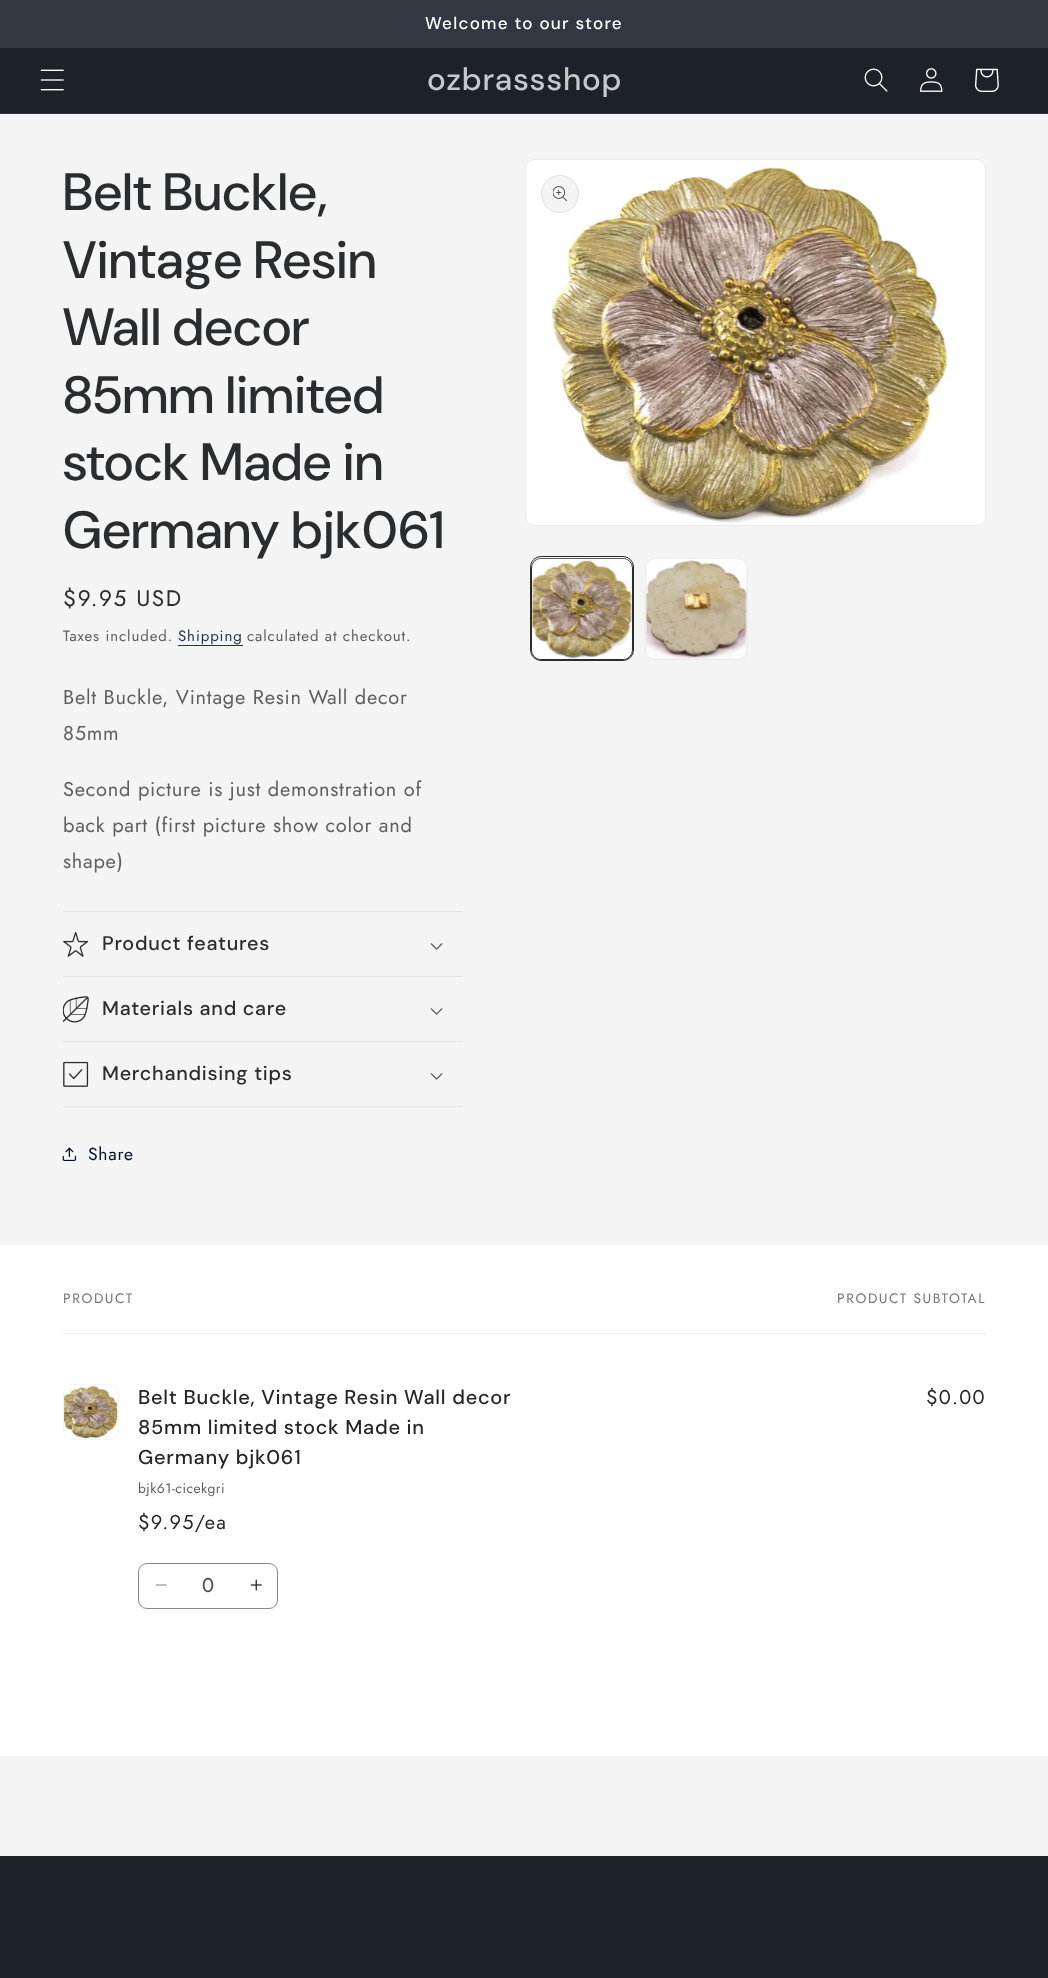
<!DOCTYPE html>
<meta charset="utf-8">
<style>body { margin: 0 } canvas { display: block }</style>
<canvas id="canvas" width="1048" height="1978"></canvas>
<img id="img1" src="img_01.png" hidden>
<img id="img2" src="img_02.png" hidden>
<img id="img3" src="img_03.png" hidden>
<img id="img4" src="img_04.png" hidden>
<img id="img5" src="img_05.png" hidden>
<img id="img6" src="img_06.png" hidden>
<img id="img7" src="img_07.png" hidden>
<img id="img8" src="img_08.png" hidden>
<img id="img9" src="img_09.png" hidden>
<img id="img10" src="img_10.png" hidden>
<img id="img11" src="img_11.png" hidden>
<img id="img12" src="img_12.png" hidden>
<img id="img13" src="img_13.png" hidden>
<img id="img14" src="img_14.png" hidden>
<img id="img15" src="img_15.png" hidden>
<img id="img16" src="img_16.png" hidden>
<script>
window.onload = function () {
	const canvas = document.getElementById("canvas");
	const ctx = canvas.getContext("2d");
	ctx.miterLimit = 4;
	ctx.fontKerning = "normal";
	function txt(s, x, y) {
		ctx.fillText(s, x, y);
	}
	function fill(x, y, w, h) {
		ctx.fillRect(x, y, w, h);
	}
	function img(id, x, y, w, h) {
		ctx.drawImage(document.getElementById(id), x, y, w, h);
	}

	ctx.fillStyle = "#F4F4F4";
	fill(0, 0, 1048, 1978);
	ctx.fillStyle = "#323841";
	fill(0, 0, 1048, 48);
	ctx.fillStyle = "#1C2228";
	fill(0, 48, 1048, 65);
	ctx.fillStyle = "#2E3439";
	fill(0, 113, 1048, 1);
	img("img1", 40, 69, 24, 22);
	img("img2", 864, 68, 24, 24);
	img("img3", 920, 68, 23, 24);
	img("img4", 975, 68, 24, 24);
	ctx.fillStyle = "#253347";
	fill(178, 645, 65, 1);
	ctx.fillStyle = "#E4E4E4";
	fill(63, 911, 400, 1);
	fill(63, 976, 400, 1);
	img("img5", 63, 931, 26, 26);
	img("img6", 430, 943, 13, 7);
	fill(63, 1041, 400, 1);
	img("img7", 63, 996, 26, 27);
	img("img6", 430, 1008, 13, 7);
	fill(63, 1106, 400, 1);
	img("img8", 63, 1061, 26, 26);
	img("img6", 430, 1073, 13, 7);
	img("img9", 62, 1147, 15, 14);
	ctx.beginPath();
	ctx.roundRect(525.5, 159.5, 460, 366, 9.5);
	ctx.strokeStyle = "#EAEAEA";
	ctx.stroke();
	img("img10", 526, 160, 459, 365);
	ctx.fillStyle = "#F4F4F4";
	ctx.beginPath();
	ctx.arc(560, 194, 19, 0, Math.PI * 2);
	ctx.fill();
	ctx.beginPath();
	ctx.arc(560, 194, 18.5, 0, Math.PI * 2);
	ctx.strokeStyle = "rgba(43, 44, 45, 0.1)";
	ctx.stroke();
	img("img11", 553, 186, 14, 16);
	ctx.beginPath();
	ctx.roundRect(530.5, 556.5, 103, 104, 10.5);
	ctx.strokeStyle = "#2B2C2D";
	ctx.stroke();
	ctx.beginPath();
	ctx.roundRect(531.5, 558.5, 101, 101, 9.5);
	ctx.stroke();
	img("img12", 532, 558, 100, 101);
	ctx.beginPath();
	ctx.roundRect(645.5, 558.5, 102, 101, 9.5);
	ctx.strokeStyle = "#EAEAEA";
	ctx.stroke();
	img("img13", 645, 558, 102, 101);
	ctx.fillStyle = "#FFFFFF";
	fill(0, 1245, 1048, 511);
	ctx.fillStyle = "#EEEEEE";
	fill(63, 1333, 923, 1);
	ctx.beginPath();
	ctx.roundRect(63.5, 1384.5, 55, 55, 9.5);
	ctx.strokeStyle = "#F4F4F4";
	ctx.stroke();
	img("img14", 63, 1385, 55, 54);
	img("img15", 155, 1584, 12, 2);
	img("img16", 250, 1579, 12, 12);
	ctx.beginPath();
	ctx.roundRect(138.5, 1563.5, 139, 45, 8.5);
	ctx.strokeStyle = "#888888";
	ctx.stroke();
	ctx.fillStyle = "#1C2228";
	fill(0, 1856, 1048, 122);
	ctx.letterSpacing = "1.25px";
	ctx.font = "500 17px 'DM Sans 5'";
	ctx.fillStyle = "#FFFFFF";
	txt("Welcome to our store", 425, 29);
	ctx.letterSpacing = "0.75px";
	ctx.font = "500 31.5px 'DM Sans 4'";
	ctx.fillStyle = "#C6C8C9";
	txt("ozbrassshop", 427, 90);
	ctx.font = "500 52.5px DM Sans";
	ctx.fillStyle = "#2B2C2D";
	txt("Belt Buckle,", 63, 210);
	txt("Vintage Resin", 63, 278);
	txt("Wall decor", 63, 345);
	txt("85mm limited", 63, 413);
	txt("stock Made in", 63, 480);
	txt("Germany bjk061", 63, 548);
	ctx.letterSpacing = "1.6px";
	ctx.font = "22.5px Jost";
	txt("$9.95 USD", 63, 606);
	ctx.letterSpacing = "0.9px";
	ctx.font = "15px Jost";
	ctx.fillStyle = "#5D5E5F";
	txt("Taxes included.", 63, 641);
	ctx.fillStyle = "#253347";
	txt("Shipping", 178, 641);
	ctx.fillStyle = "#5D5E5F";
	txt("calculated at checkout.", 247, 641);
	ctx.letterSpacing = "0.75px";
	ctx.font = "20px Jost";
	txt("Belt Buckle, Vintage Resin Wall decor", 63, 704);
	txt("85mm", 63, 740);
	txt("Second picture is just demonstration of", 63, 796);
	txt("back part (first picture show color and", 63, 832);
	txt("shape)", 63, 868);
	ctx.font = "500 19.75px 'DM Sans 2'";
	ctx.fillStyle = "#2B2C2D";
	txt("Product features", 102, 950);
	txt("Materials and care", 102, 1015);
	txt("Merchandising tips", 102, 1080);
	ctx.font = "17.5px Jost";
	ctx.fillStyle = "#001128";
	txt("Share", 88, 1160);
	ctx.letterSpacing = "1.6px";
	ctx.font = "13.75px Jost";
	ctx.fillStyle = "#757575";
	txt("PRODUCT", 63, 1303);
	txt("PRODUCT SUBTOTAL", 837, 1303);
	ctx.letterSpacing = "0.75px";
	ctx.font = "500 20px 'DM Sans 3'";
	ctx.fillStyle = "#262626";
	txt("Belt Buckle, Vintage Resin Wall decor", 138, 1404);
	txt("85mm limited stock Made in", 138, 1434);
	txt("Germany bjk061", 138, 1464);
	ctx.letterSpacing = "0.5px";
	ctx.font = "13.75px Jost";
	ctx.fillStyle = "#5D5E5F";
	txt("bjk61-cicekgri", 138, 1493);
	ctx.letterSpacing = "1.25px";
	ctx.font = "20px Jost";
	ctx.fillStyle = "#262626";
	txt("$9.95/ea", 138, 1529);
	txt("$0.00", 926, 1404);
	ctx.letterSpacing = "0px";
	ctx.fillStyle = "#474747";
	txt("0", 202, 1592);
};
</script>
